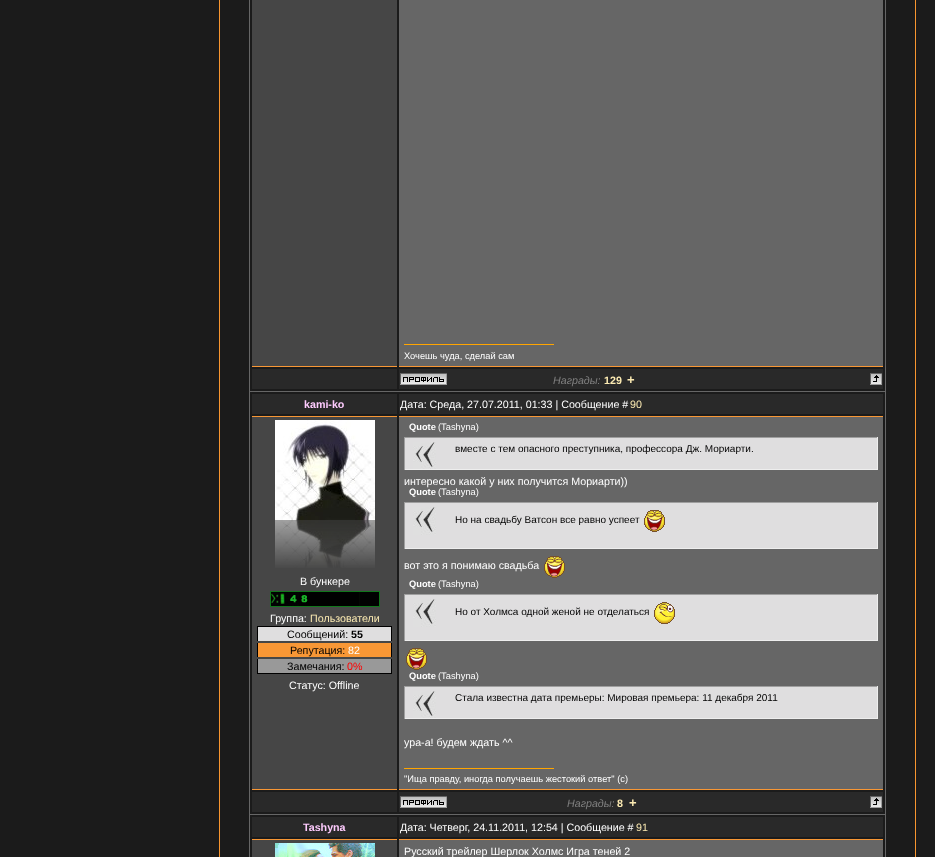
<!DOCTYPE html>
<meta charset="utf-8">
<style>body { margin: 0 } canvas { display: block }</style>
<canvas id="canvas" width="935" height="857"></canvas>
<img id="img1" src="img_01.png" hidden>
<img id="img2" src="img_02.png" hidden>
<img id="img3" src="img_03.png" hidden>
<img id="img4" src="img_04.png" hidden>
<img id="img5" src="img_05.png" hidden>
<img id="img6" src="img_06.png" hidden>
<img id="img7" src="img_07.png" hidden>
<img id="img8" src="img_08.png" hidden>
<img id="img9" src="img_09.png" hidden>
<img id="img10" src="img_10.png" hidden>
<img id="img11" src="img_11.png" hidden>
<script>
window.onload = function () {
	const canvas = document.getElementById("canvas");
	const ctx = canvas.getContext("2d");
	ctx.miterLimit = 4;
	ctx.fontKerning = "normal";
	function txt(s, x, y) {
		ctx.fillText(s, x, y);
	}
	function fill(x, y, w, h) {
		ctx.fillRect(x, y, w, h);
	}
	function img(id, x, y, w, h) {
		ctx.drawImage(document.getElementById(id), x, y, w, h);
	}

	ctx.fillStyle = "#1B1B1B";
	fill(0, 0, 935, 857);
	ctx.fillStyle = "#F8952F";
	fill(219, 0, 1, 857);
	ctx.fillStyle = "#666666";
	fill(249, 0, 637, 857);
	ctx.fillStyle = "#1B1B1B";
	fill(250, 0, 635, 391);
	ctx.fillStyle = "#464646";
	fill(252, 0, 145, 366);
	ctx.fillStyle = "#F89735";
	fill(252, 366, 145, 1);
	ctx.fillStyle = "#666666";
	fill(399, 0, 484, 366);
	ctx.fillStyle = "#F89735";
	fill(399, 366, 484, 1);
	ctx.fillStyle = "#FFA500";
	fill(404, 344, 150, 1);
	ctx.fillStyle = "#292929";
	fill(252, 369, 145, 20);
	fill(399, 369, 484, 20);
	img("img1", 400, 373, 47, 12);
	img("img2", 870, 373, 12, 12);
	ctx.fillStyle = "#1B1B1B";
	fill(250, 392, 635, 422);
	ctx.fillStyle = "#292929";
	fill(252, 394, 145, 20);
	fill(399, 394, 484, 20);
	ctx.fillStyle = "#464646";
	fill(252, 417, 145, 372);
	ctx.fillStyle = "#F89735";
	fill(252, 416, 145, 1);
	fill(252, 789, 145, 1);
	img("img3", 275, 420, 100, 100);
	img("img4", 275, 520, 100, 48);
	img("img5", 270, 591, 110, 16);
	ctx.fillStyle = "#DFDEDF";
	fill(258, 627, 133, 14);
	ctx.fillStyle = "#000000";
	fill(257, 626, 135, 1);
	fill(391, 626, 1, 15);
	fill(257, 626, 1, 15);
	ctx.fillStyle = "#F89735";
	fill(258, 643, 133, 14);
	ctx.fillStyle = "#000000";
	fill(391, 643, 1, 14);
	fill(257, 643, 1, 14);
	ctx.fillStyle = "#999999";
	fill(258, 659, 133, 14);
	ctx.fillStyle = "#000000";
	fill(391, 659, 1, 15);
	fill(257, 673, 135, 1);
	fill(257, 659, 1, 15);
	ctx.fillStyle = "#666666";
	fill(399, 417, 484, 372);
	ctx.fillStyle = "#F89735";
	fill(399, 416, 484, 1);
	fill(399, 789, 484, 1);
	ctx.fillStyle = "#DFDEDF";
	fill(405, 438, 472, 31);
	img("img6", 413, 442, 23, 27);
	ctx.fillStyle = "#9F9F9F";
	fill(404, 437, 474, 1);
	ctx.fillStyle = "#EEEEEE";
	fill(877, 437, 1, 33);
	fill(404, 469, 474, 1);
	ctx.fillStyle = "#9F9F9F";
	fill(404, 437, 1, 33);
	ctx.fillStyle = "#DFDEDF";
	fill(405, 503, 472, 45);
	img("img7", 413, 507, 23, 28);
	ctx.fillStyle = "#9F9F9F";
	fill(404, 502, 474, 1);
	ctx.fillStyle = "#EEEEEE";
	fill(877, 502, 1, 47);
	fill(404, 548, 474, 1);
	ctx.fillStyle = "#9F9F9F";
	fill(404, 502, 1, 47);
	img("img8", 644, 510, 21, 22);
	img("img9", 544, 556, 21, 22);
	ctx.fillStyle = "#DFDEDF";
	fill(405, 595, 472, 45);
	img("img7", 413, 599, 23, 28);
	ctx.fillStyle = "#9F9F9F";
	fill(404, 594, 474, 1);
	ctx.fillStyle = "#EEEEEE";
	fill(877, 594, 1, 47);
	fill(404, 640, 474, 1);
	ctx.fillStyle = "#9F9F9F";
	fill(404, 594, 1, 47);
	img("img10", 654, 602, 21, 22);
	img("img9", 406, 648, 21, 22);
	ctx.fillStyle = "#DFDEDF";
	fill(405, 687, 472, 31);
	img("img6", 413, 691, 23, 27);
	ctx.fillStyle = "#9F9F9F";
	fill(404, 686, 474, 1);
	ctx.fillStyle = "#EEEEEE";
	fill(877, 686, 1, 33);
	fill(404, 718, 474, 1);
	ctx.fillStyle = "#9F9F9F";
	fill(404, 686, 1, 33);
	ctx.fillStyle = "#FFA500";
	fill(404, 768, 150, 1);
	ctx.fillStyle = "#292929";
	fill(252, 792, 145, 20);
	fill(399, 792, 484, 20);
	img("img1", 400, 796, 47, 12);
	img("img2", 870, 796, 12, 12);
	ctx.fillStyle = "#1B1B1B";
	fill(250, 815, 635, 42);
	ctx.fillStyle = "#292929";
	fill(252, 817, 145, 20);
	fill(399, 817, 484, 20);
	ctx.fillStyle = "#464646";
	fill(252, 840, 145, 17);
	ctx.fillStyle = "#F89735";
	fill(252, 839, 145, 1);
	img("img11", 275, 843, 100, 14);
	ctx.fillStyle = "#666666";
	fill(399, 840, 484, 17);
	ctx.fillStyle = "#F89735";
	fill(399, 839, 484, 1);
	ctx.fillStyle = "#F8952F";
	fill(915, 0, 1, 857);
	ctx.font = "9.3px Liberation Sans";
	ctx.fillStyle = "#FFFFFF";
	txt("Хочешь чуда, сделай сам", 404, 359);
	ctx.font = "italic 10.7px Liberation Sans";
	ctx.fillStyle = "#808080";
	txt("Награды:", 553, 384);
	ctx.font = "bold 10.7px Liberation Sans";
	ctx.fillStyle = "#FBEAB2";
	txt("129", 604, 384);
	ctx.font = "bold 13px Liberation Sans";
	txt("+", 627, 384);
	ctx.font = "bold 10.7px Liberation Sans";
	ctx.fillStyle = "#FFCCFF";
	txt("kami-ko", 304, 408);
	ctx.font = "10.7px Liberation Sans";
	ctx.fillStyle = "#FFFFFF";
	txt("Дата: Среда, 27.07.2011, 01:33 | Сообщение #", 400, 408);
	ctx.fillStyle = "#FBEAB2";
	txt("90", 630, 408);
	ctx.fillStyle = "#FFFFFF";
	txt("В бункере", 300, 585);
	txt("Группа:", 270, 622);
	ctx.fillStyle = "#FBEAB2";
	txt("Пользователи", 310, 622);
	ctx.fillStyle = "#000000";
	txt("Сообщений:", 287, 638);
	ctx.font = "bold 10.7px Liberation Sans";
	txt("55", 351, 638);
	ctx.font = "10.7px Liberation Sans";
	txt("Репутация:", 290, 654);
	ctx.fillStyle = "#FFFFFF";
	txt("82", 348, 654);
	ctx.fillStyle = "#000000";
	txt("Замечания:", 287, 670);
	ctx.fillStyle = "#FF0000";
	txt("0%", 347, 670);
	ctx.fillStyle = "#FFFFFF";
	txt("Статус: Offline", 289, 689);
	ctx.font = "bold 9.3px Liberation Sans";
	txt("Quote", 409, 430);
	ctx.font = "9.3px Liberation Sans";
	txt("(Tashyna)", 438, 430);
	ctx.font = "10px Liberation Sans";
	ctx.fillStyle = "#000000";
	txt("вместе с тем опасного преступника, профессора Дж. Мориарти.", 455, 452);
	ctx.font = "10.7px Liberation Sans";
	ctx.fillStyle = "#FFFFFF";
	txt("интересно какой у них получится Мориарти))", 404, 485);
	ctx.font = "bold 9.3px Liberation Sans";
	txt("Quote", 409, 495);
	ctx.font = "9.3px Liberation Sans";
	txt("(Tashyna)", 438, 495);
	ctx.font = "10px Liberation Sans";
	ctx.fillStyle = "#000000";
	txt("Но на свадьбу Ватсон все равно успеет", 455, 523);
	ctx.font = "10.7px Liberation Sans";
	ctx.fillStyle = "#FFFFFF";
	txt("вот это я понимаю свадьба", 404, 569);
	ctx.font = "bold 9.3px Liberation Sans";
	txt("Quote", 409, 587);
	ctx.font = "9.3px Liberation Sans";
	txt("(Tashyna)", 438, 587);
	ctx.font = "10px Liberation Sans";
	ctx.fillStyle = "#000000";
	txt("Но от Холмса одной женой не отделаться", 455, 615);
	ctx.font = "bold 9.3px Liberation Sans";
	ctx.fillStyle = "#FFFFFF";
	txt("Quote", 409, 679);
	ctx.font = "9.3px Liberation Sans";
	txt("(Tashyna)", 438, 679);
	ctx.font = "10px Liberation Sans";
	ctx.fillStyle = "#000000";
	txt("Стала известна дата премьеры: Мировая премьера: 11 декабря 2011", 455, 701);
	ctx.font = "10.7px Liberation Sans";
	ctx.fillStyle = "#FFFFFF";
	txt("ура-а! будем ждать ^^", 404, 746);
	ctx.font = "9.3px Liberation Sans";
	txt("\"Ища правду, иногда получаешь жестокий ответ\" (c)", 404, 782);
	ctx.font = "italic 10.7px Liberation Sans";
	ctx.fillStyle = "#808080";
	txt("Награды:", 567, 807);
	ctx.font = "bold 10.7px Liberation Sans";
	ctx.fillStyle = "#FBEAB2";
	txt("8", 617, 807);
	ctx.font = "bold 13px Liberation Sans";
	txt("+", 629, 807);
	ctx.font = "bold 10.7px Liberation Sans";
	ctx.fillStyle = "#FFCCFF";
	txt("Tashyna", 303, 831);
	ctx.font = "10.7px Liberation Sans";
	ctx.fillStyle = "#FFFFFF";
	txt("Дата: Четверг, 24.11.2011, 12:54 | Сообщение #", 400, 831);
	ctx.fillStyle = "#FBEAB2";
	txt("91", 636, 831);
	ctx.fillStyle = "#FFFFFF";
	txt("Русский трейлер Шерлок Холмс Игра теней 2", 404, 855);
};
</script>
